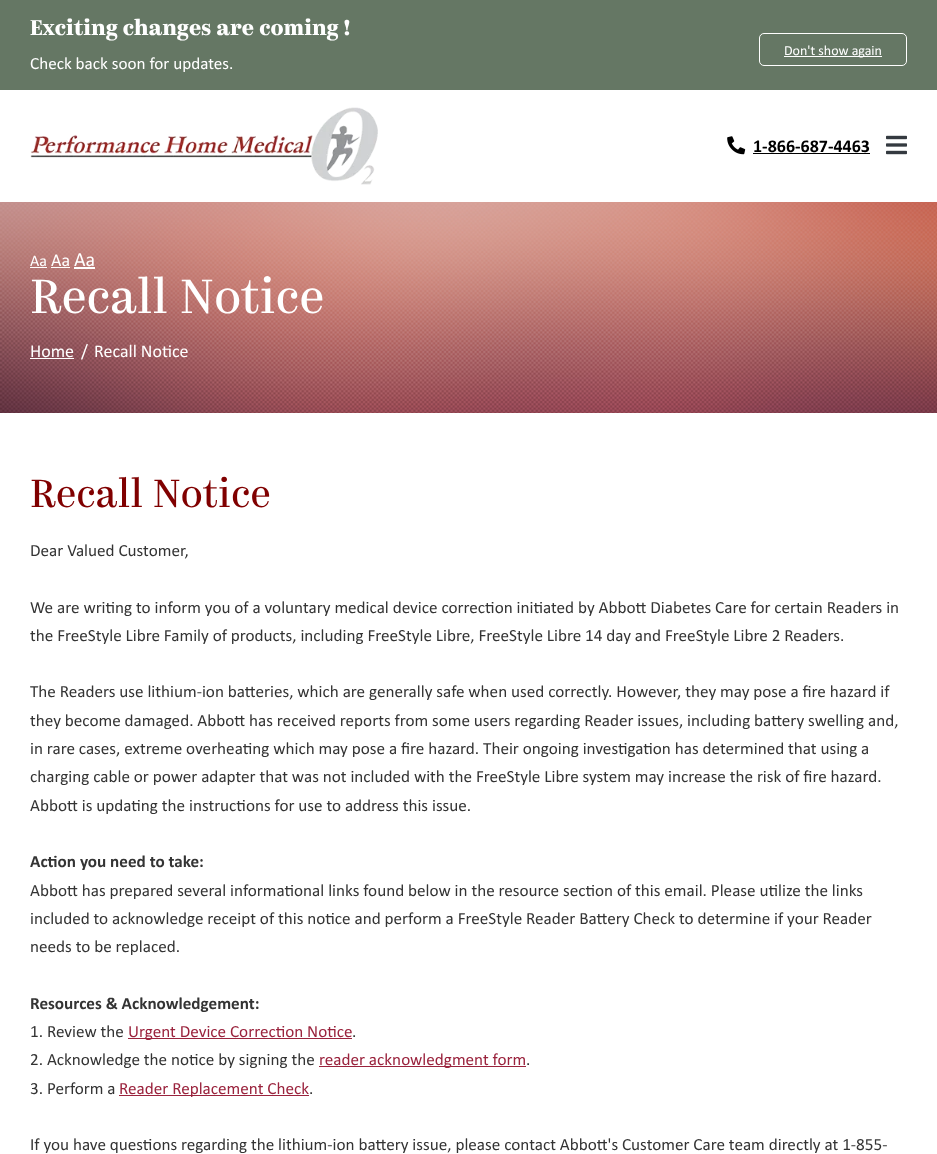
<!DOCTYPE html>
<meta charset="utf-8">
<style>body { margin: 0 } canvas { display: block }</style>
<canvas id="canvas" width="937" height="1154"></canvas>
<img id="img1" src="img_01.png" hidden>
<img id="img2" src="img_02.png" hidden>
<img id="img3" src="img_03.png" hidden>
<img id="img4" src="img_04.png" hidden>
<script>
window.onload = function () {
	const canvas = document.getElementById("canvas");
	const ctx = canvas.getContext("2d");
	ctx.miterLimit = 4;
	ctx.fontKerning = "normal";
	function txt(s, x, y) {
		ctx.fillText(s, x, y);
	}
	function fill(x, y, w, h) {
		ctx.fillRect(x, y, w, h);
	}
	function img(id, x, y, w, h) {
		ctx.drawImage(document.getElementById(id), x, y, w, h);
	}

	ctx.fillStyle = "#FFFFFF";
	fill(0, 0, 937, 1154);
	ctx.fillStyle = "#657764";
	fill(0, 0, 937, 90);
	ctx.beginPath();
	ctx.roundRect(759.5, 33.5, 147, 32, 4.5);
	ctx.strokeStyle = "#FFFFFF";
	ctx.stroke();
	ctx.fillStyle = "#FFFFFF";
	fill(784, 56, 98, 1);
	img("img1", 30, 107, 348, 78);
	img("img2", 727, 136, 19, 19);
	ctx.fillStyle = "#000000";
	fill(753, 153, 117, 1);
	img("img3", 886, 135, 21, 20);
	img("img4", 0, 202, 937, 211);
	ctx.fillStyle = "#FFFFFF";
	fill(30, 267, 17, 1);
	fill(51, 267, 19, 1);
	fill(74, 267, 21, 2);
	fill(30, 358, 44, 1);
	ctx.fillStyle = "#9A233D";
	fill(128, 1038, 224, 1);
	fill(319, 1066, 207, 1);
	fill(119, 1095, 190, 1);
	ctx.font = "bold 21.5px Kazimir";
	ctx.fillStyle = "#FFFFFF";
	txt("Exciting changes are coming !", 30, 35);
	ctx.font = "17.15px Calibri";
	txt("Check back soon for updates.", 30, 69);
	ctx.font = "14px Calibri";
	txt("Don't show again", 784, 55);
	ctx.font = "bold 18px Calibri";
	ctx.fillStyle = "#000000";
	txt("1-866-687-4463", 753, 152);
	ctx.font = "16px Calibri";
	ctx.fillStyle = "#FFFFFF";
	txt("Aa", 30, 266);
	ctx.font = "18px Calibri";
	txt("Aa", 51, 266);
	ctx.font = "20px Calibri";
	txt("Aa", 74, 266);
	ctx.font = "48.25px Kazimir";
	txt("Recall Notice", 30, 313);
	ctx.font = "18px Calibri";
	txt("Home", 30, 357);
	txt("/", 81, 357);
	txt("Recall Notice", 94, 357);
	ctx.font = "39.5px Kazimir";
	ctx.fillStyle = "#800000";
	txt("Recall Notice", 30, 507);
	ctx.font = "17.15px Calibri";
	ctx.fillStyle = "#343434";
	txt("Dear Valued Customer,", 30, 556);
	txt("We are writing to inform you of a voluntary medical device correction initiated by Abbott Diabetes Care for certain Readers in", 30, 613);
	txt("the FreeStyle Libre Family of products, including FreeStyle Libre, FreeStyle Libre 14 day and FreeStyle Libre 2 Readers.", 30, 641);
	txt("The Readers use lithium-ion batteries, which are generally safe when used correctly. However, they may pose a fire hazard if", 30, 697);
	txt("they become damaged. Abbott has received reports from some users regarding Reader issues, including battery swelling and,", 30, 726);
	txt("in rare cases, extreme overheating which may pose a fire hazard. Their ongoing investigation has determined that using a", 30, 754);
	txt("charging cable or power adapter that was not included with the FreeStyle Libre system may increase the risk of fire hazard.", 30, 782);
	txt("Abbott is updating the instructions for use to address this issue.", 30, 811);
	ctx.font = "bold 17.15px Calibri";
	txt("Action you need to take:", 30, 867);
	ctx.font = "17.15px Calibri";
	txt("Abbott has prepared several informational links found below in the resource section of this email. Please utilize the links", 30, 896);
	txt("included to acknowledge receipt of this notice and perform a FreeStyle Reader Battery Check to determine if your Reader", 30, 924);
	txt("needs to be replaced.", 30, 952);
	ctx.font = "bold 17.15px Calibri";
	txt("Resources & Acknowledgement:", 30, 1009);
	ctx.font = "17.15px Calibri";
	txt("1. Review the", 30, 1037);
	ctx.fillStyle = "#9A233D";
	txt("Urgent Device Correction Notice", 128, 1037);
	ctx.fillStyle = "#343434";
	txt(".", 352, 1037);
	txt("2. Acknowledge the notice by signing the", 30, 1065);
	ctx.fillStyle = "#9A233D";
	txt("reader acknowledgment form", 319, 1065);
	ctx.fillStyle = "#343434";
	txt(".", 526, 1065);
	txt("3. Perform a", 30, 1094);
	ctx.fillStyle = "#9A233D";
	txt("Reader Replacement Check", 119, 1094);
	ctx.fillStyle = "#343434";
	txt(".", 309, 1094);
	txt("If you have questions regarding the lithium-ion battery issue, please contact Abbott's Customer Care team directly at 1-855-", 30, 1150);
};
</script>
